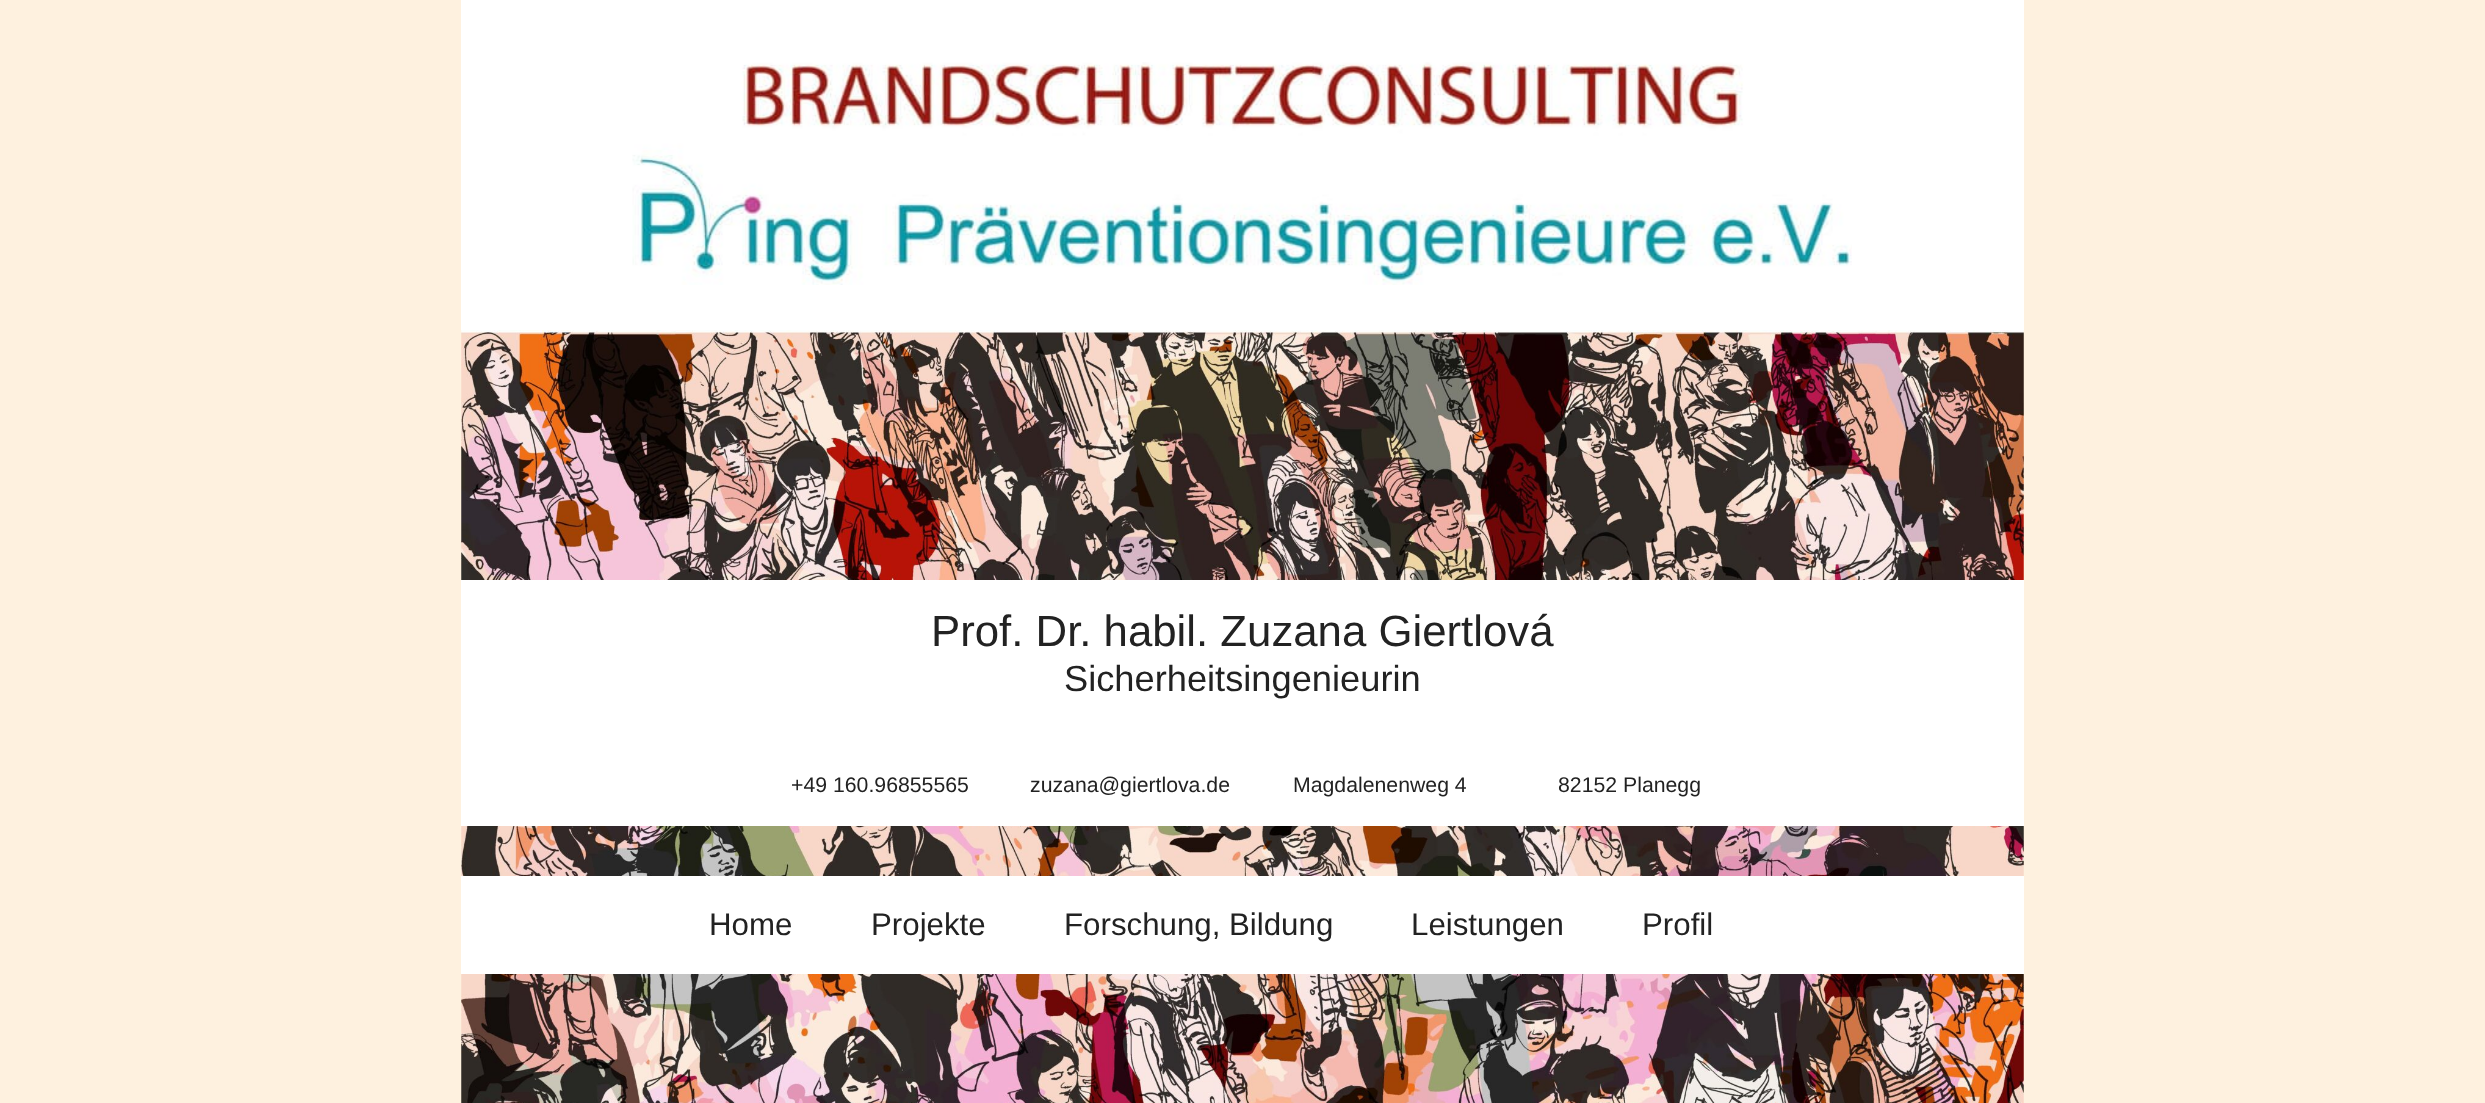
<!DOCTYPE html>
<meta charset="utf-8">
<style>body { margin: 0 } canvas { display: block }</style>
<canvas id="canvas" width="2485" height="1103"></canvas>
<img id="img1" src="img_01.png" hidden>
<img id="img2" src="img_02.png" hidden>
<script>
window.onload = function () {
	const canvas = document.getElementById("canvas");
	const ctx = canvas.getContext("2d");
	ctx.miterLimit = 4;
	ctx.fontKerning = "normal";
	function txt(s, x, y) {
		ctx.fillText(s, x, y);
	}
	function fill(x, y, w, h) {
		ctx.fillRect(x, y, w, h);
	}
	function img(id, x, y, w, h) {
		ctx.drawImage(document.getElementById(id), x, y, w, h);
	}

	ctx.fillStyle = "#FEF1DF";
	fill(0, 0, 2485, 1103);
	ctx.fillStyle = "#FFFFFF";
	fill(461, 0, 1563, 330);
	img("img1", 632, 62, 1220, 223);
	img("img2", 461, 330, 1563, 773);
	fill(461, 580, 1563, 246);
	fill(461, 876, 1563, 98);
	ctx.font = "43.75px Liberation Sans";
	ctx.fillStyle = "#222222";
	txt("Prof. Dr. habil. Zuzana Giertlová", 931, 646);
	ctx.font = "36.25px Liberation Sans";
	txt("Sicherheitsingenieurin", 1064, 691);
	ctx.font = "21.25px Liberation Sans";
	txt("+49 160.96855565", 791, 792);
	txt("zuzana@giertlova.de", 1030, 792);
	txt("Magdalenenweg 4", 1293, 792);
	txt("82152 Planegg", 1558, 792);
	ctx.font = "31.25px Liberation Sans";
	txt("Home", 709, 935);
	txt("Projekte", 871, 935);
	txt("Forschung, Bildung", 1064, 935);
	txt("Leistungen", 1411, 935);
	txt("Profil", 1642, 935);
};
</script>
